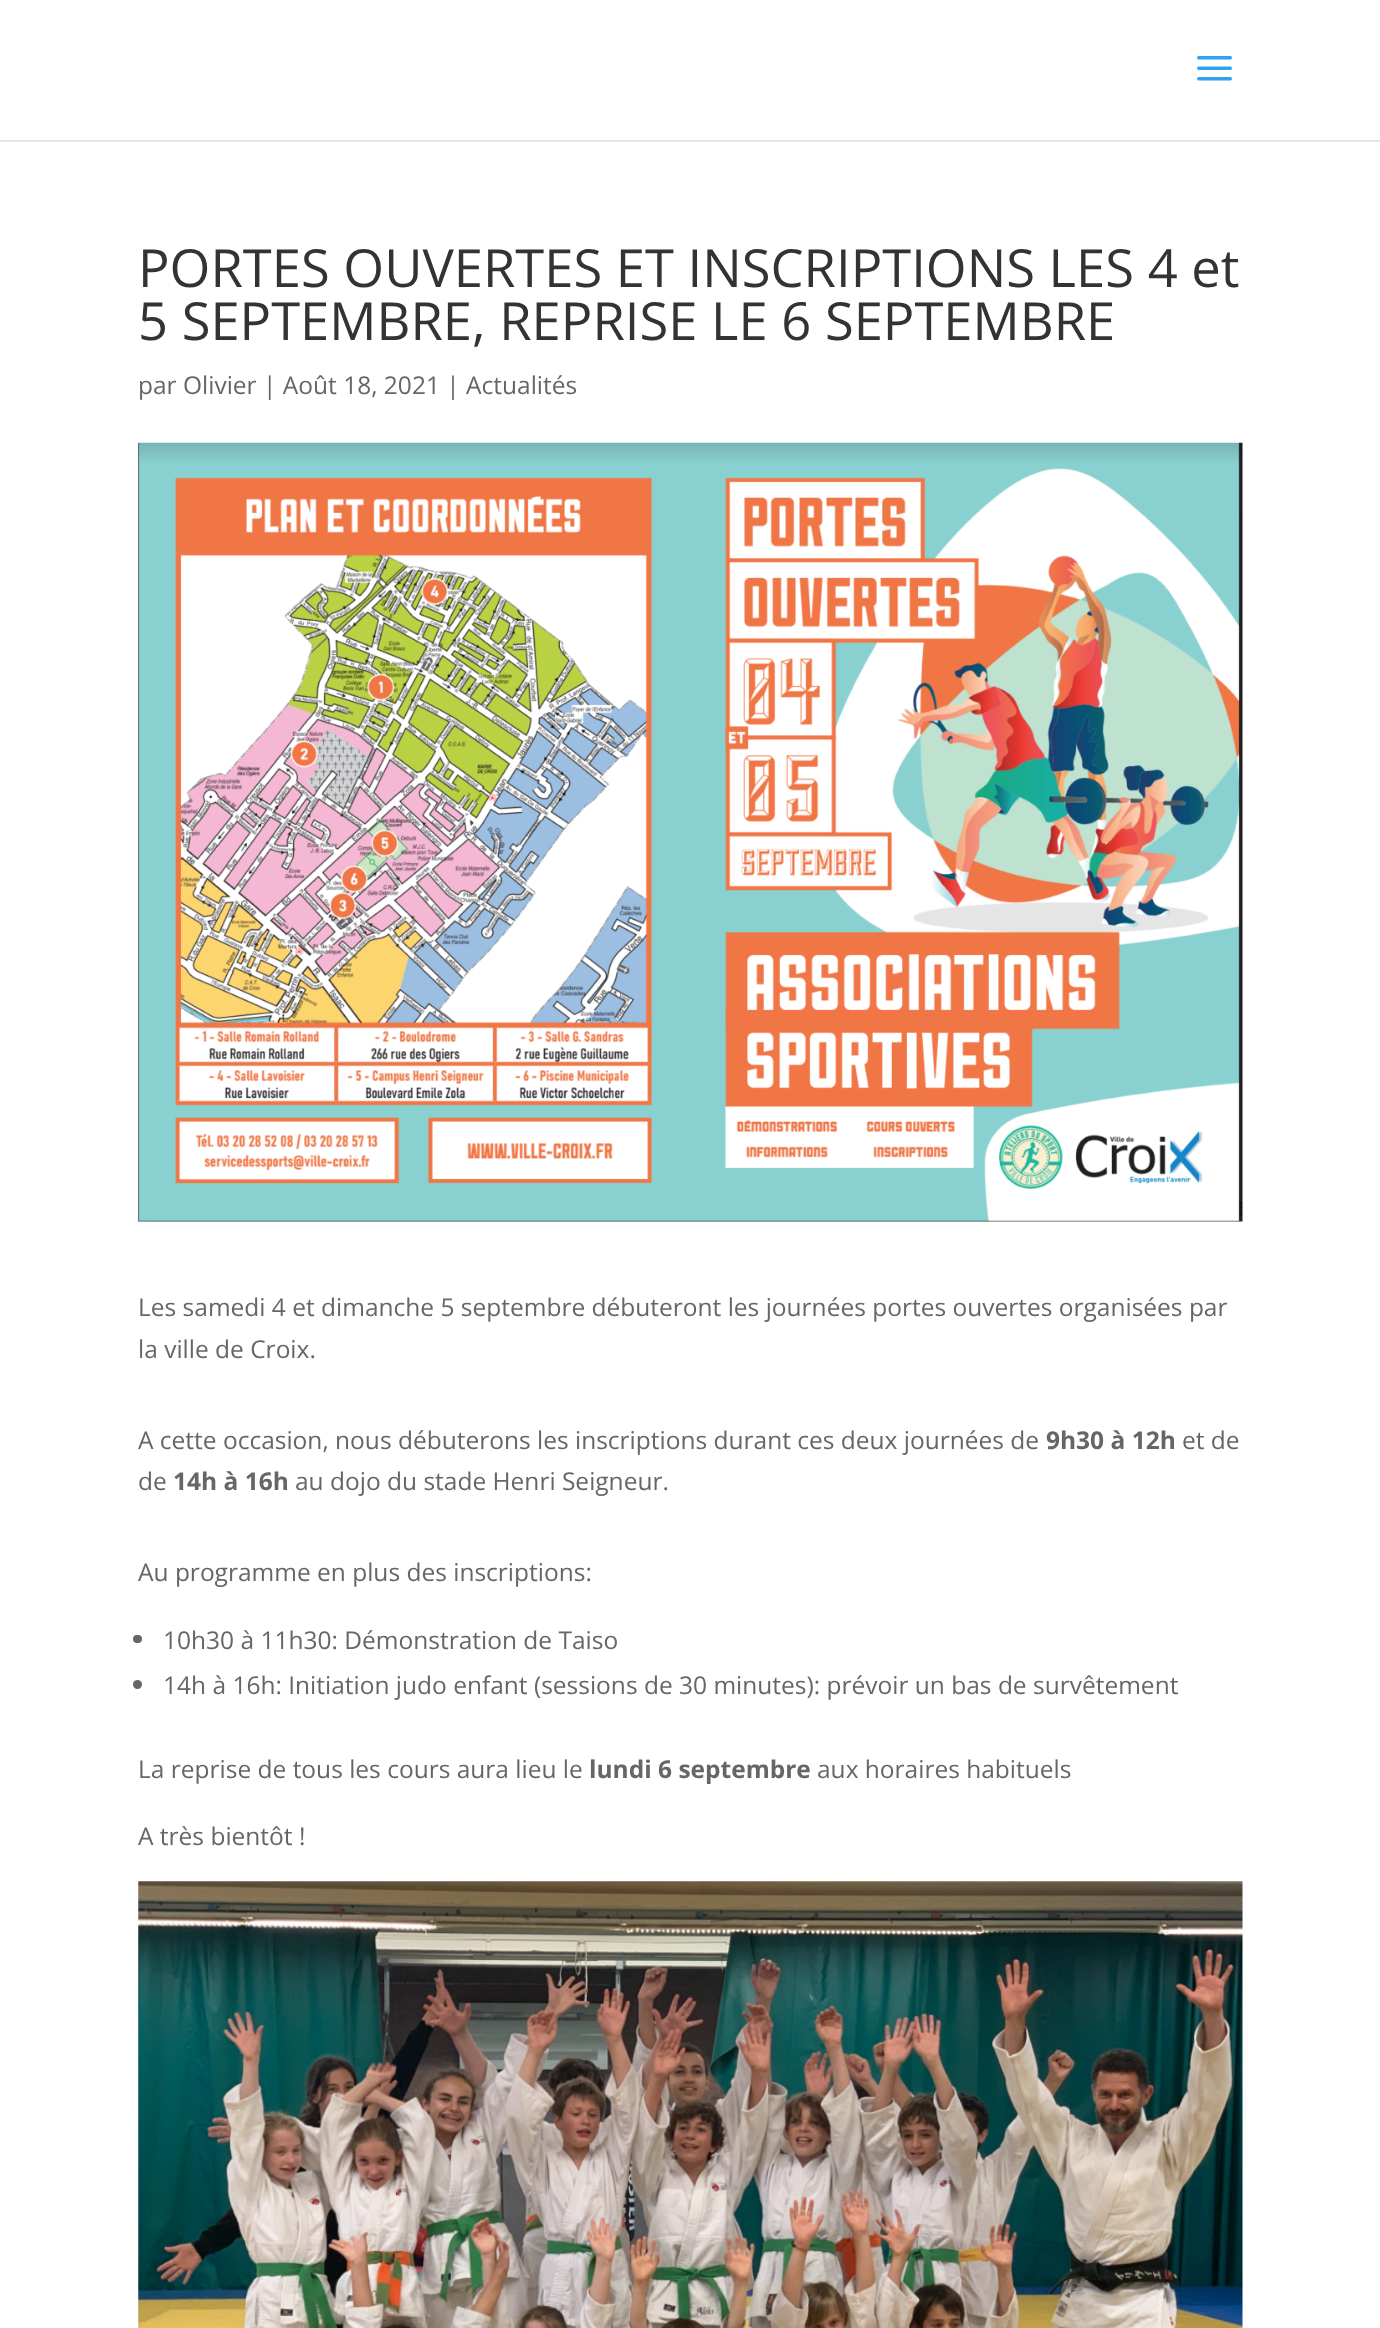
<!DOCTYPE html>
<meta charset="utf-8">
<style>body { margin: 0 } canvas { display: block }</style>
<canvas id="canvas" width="1380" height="2328"></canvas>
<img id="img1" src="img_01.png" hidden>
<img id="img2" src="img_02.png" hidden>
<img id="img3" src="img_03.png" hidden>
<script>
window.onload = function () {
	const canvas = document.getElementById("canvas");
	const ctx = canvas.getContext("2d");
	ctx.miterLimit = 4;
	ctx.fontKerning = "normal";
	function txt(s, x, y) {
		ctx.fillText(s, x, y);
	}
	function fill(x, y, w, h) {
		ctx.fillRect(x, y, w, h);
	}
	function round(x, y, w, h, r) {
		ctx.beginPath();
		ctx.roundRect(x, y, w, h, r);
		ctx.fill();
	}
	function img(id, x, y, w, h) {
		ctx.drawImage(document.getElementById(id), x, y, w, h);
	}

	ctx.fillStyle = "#FFFFFF";
	fill(0, 0, 1380, 2328);
	ctx.fillStyle = "#E6E6E6";
	ctx.beginPath();
	ctx.moveTo(0, 140);
	ctx.lineTo(0, 142);
	ctx.lineTo(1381, 142);
	ctx.lineTo(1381, 2);
	ctx.lineTo(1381, 140);
	ctx.closePath();
	ctx.fill();
	img("img1", 1197, 56, 35, 25);
	img("img2", 138, 442, 1105, 780);
	ctx.fillStyle = "#666666";
	round(133, 1635, 9, 8, 4);
	ctx.beginPath();
	ctx.arc(137.5, 1684.5, 4.5, 0, Math.PI * 2);
	ctx.fill();
	img("img3", 138, 1881, 1105, 447);
	ctx.font = "52.5px Open Sans";
	ctx.fillStyle = "#333333";
	txt("PORTES OUVERTES ET INSCRIPTIONS LES 4 et", 138, 287);
	txt("5 SEPTEMBRE, REPRISE LE 6 SEPTEMBRE", 138, 340);
	ctx.font = "24.5px Open Sans";
	ctx.fillStyle = "#666666";
	txt("par Olivier | Août 18, 2021 | Actualités", 138, 394);
	txt("Les samedi 4 et dimanche 5 septembre débuteront les journées portes ouvertes organisées par", 138, 1316);
	txt("la ville de Croix.", 138, 1358);
	txt("A cette occasion, nous débuterons les inscriptions durant ces deux journées de", 138, 1449);
	ctx.font = "bold 24.5px Open Sans";
	txt("9h30 à 12h", 1046, 1449);
	ctx.font = "24.5px Open Sans";
	txt("et de", 1182, 1449);
	txt("de", 138, 1490);
	ctx.font = "bold 24.5px Open Sans";
	txt("14h à 16h", 173, 1490);
	ctx.font = "24.5px Open Sans";
	txt("au dojo du stade Henri Seigneur.", 295, 1490);
	txt("Au programme en plus des inscriptions:", 138, 1581);
	txt("10h30 à 11h30: Démonstration de Taiso", 163, 1649);
	txt("14h à 16h: Initiation judo enfant (sessions de 30 minutes): prévoir un bas de survêtement", 163, 1694);
	txt("La reprise de tous les cours aura lieu le", 138, 1778);
	ctx.font = "bold 24.5px Open Sans";
	txt("lundi 6 septembre", 589, 1778);
	ctx.font = "24.5px Open Sans";
	txt("aux horaires habituels", 817, 1778);
	txt("A très bientôt !", 138, 1845);
};
</script>
